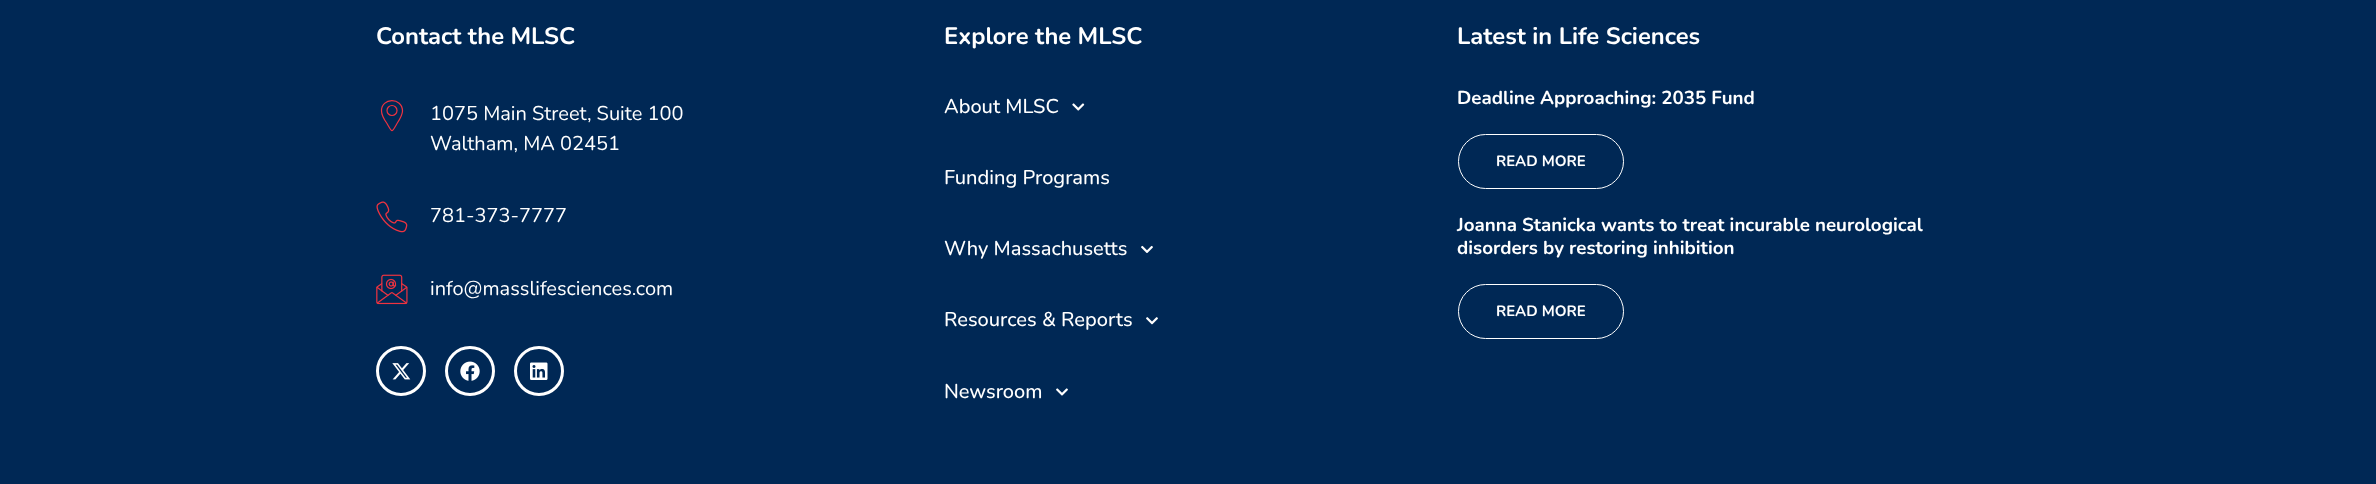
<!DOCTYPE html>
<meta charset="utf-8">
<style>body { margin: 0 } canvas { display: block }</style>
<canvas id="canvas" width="2376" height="484"></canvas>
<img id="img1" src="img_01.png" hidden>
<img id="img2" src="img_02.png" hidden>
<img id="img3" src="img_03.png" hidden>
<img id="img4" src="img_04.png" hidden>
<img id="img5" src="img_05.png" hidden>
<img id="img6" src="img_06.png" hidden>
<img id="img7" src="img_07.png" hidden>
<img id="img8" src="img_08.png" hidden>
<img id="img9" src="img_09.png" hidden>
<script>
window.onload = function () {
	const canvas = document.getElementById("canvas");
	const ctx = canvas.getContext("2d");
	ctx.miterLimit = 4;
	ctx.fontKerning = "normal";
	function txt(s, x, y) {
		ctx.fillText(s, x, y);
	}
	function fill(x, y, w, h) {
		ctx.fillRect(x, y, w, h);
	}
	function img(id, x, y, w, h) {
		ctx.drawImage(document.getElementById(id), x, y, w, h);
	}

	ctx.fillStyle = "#002855";
	fill(0, 0, 2376, 484);
	ctx.beginPath();
	ctx.moveTo(402.5, 111);
	ctx.bezierCurveTo(402.5, 115, 399, 120.5, 397, 123.5);
	ctx.bezierCurveTo(391.5, 133, 392.5, 133, 387, 123.5);
	ctx.bezierCurveTo(384.5, 120, 381.5, 115.5, 381.5, 111);
	ctx.bezierCurveTo(381, 97.5, 402.5, 97, 402.5, 111);
	ctx.closePath();
	ctx.strokeStyle = "#EF3340";
	ctx.lineWidth = 1.2;
	ctx.stroke();
	ctx.beginPath();
	ctx.arc(392, 110.5, 5, 0, Math.PI * 2);
	ctx.stroke();
	img("img1", 376, 201, 32, 32);
	img("img2", 376, 274, 32, 31);
	ctx.beginPath();
	ctx.arc(401, 371, 23.5, 0, Math.PI * 2);
	ctx.strokeStyle = "#FFFFFF";
	ctx.lineWidth = 3;
	ctx.stroke();
	img("img3", 392, 363, 19, 17);
	ctx.beginPath();
	ctx.arc(470, 371, 23.5, 0, Math.PI * 2);
	ctx.stroke();
	img("img4", 460, 361, 20, 20);
	ctx.beginPath();
	ctx.arc(539, 371, 23.5, 0, Math.PI * 2);
	ctx.stroke();
	img("img5", 530, 362, 18, 18);
	img("img6", 1072, 103, 13, 8);
	img("img7", 1141, 245, 12, 8);
	img("img8", 1146, 317, 12, 8);
	img("img9", 1056, 388, 12, 8);
	ctx.beginPath();
	ctx.roundRect(1458.5, 134.5, 165, 54, 27);
	ctx.lineWidth = 1;
	ctx.stroke();
	ctx.beginPath();
	ctx.roundRect(1458.5, 284.5, 165, 54, 27);
	ctx.stroke();
	ctx.font = "bold 23.75px Nunito";
	ctx.fillStyle = "#FFFFFF";
	txt("Contact the MLSC", 376, 44);
	ctx.font = "20px Nunito";
	txt("1075 Main Street, Suite 100", 430, 120);
	txt("Waltham, MA 02451", 430, 150);
	txt("781-373-7777", 430, 222);
	txt("info@masslifesciences.com", 430, 295);
	ctx.font = "bold 23.75px Nunito";
	txt("Explore the MLSC", 944, 44);
	ctx.font = "500 20px Nunito";
	txt("About MLSC", 944, 113);
	txt("Funding Programs", 944, 184);
	txt("Why Massachusetts", 944, 255);
	txt("Resources & Reports", 944, 326);
	txt("Newsroom", 944, 398);
	ctx.font = "bold 23.75px Nunito";
	txt("Latest in Life Sciences", 1457, 44);
	ctx.font = "bold 18.75px Nunito";
	txt("Deadline Approaching: 2035 Fund", 1457, 104);
	ctx.font = "bold 15px Nunito";
	txt("READ MORE", 1496, 166);
	ctx.font = "bold 18.75px Nunito";
	txt("Joanna Stanicka wants to treat incurable neurological", 1457, 231);
	txt("disorders by restoring inhibition", 1457, 254);
	ctx.font = "bold 15px Nunito";
	txt("READ MORE", 1496, 316);
};
</script>
